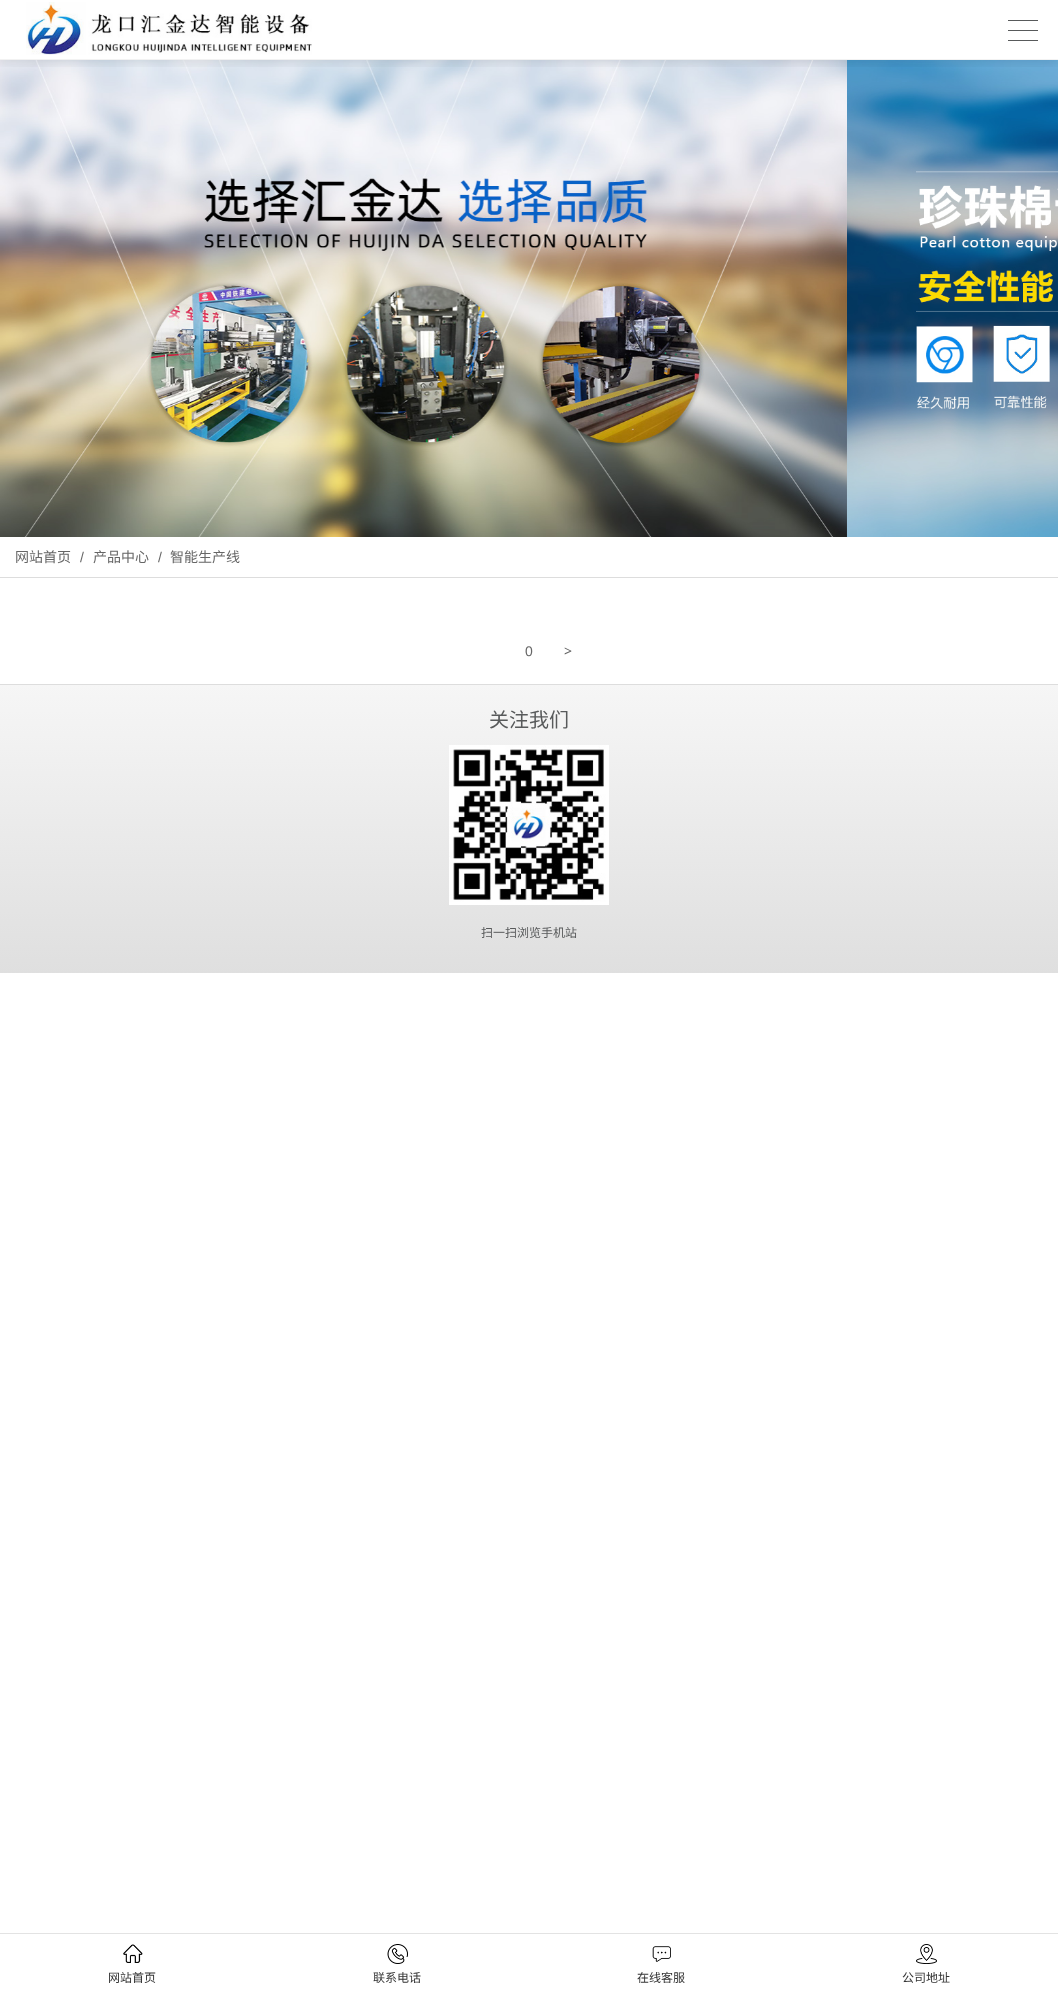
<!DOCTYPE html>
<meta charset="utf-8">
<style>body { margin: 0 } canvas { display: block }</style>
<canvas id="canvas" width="1058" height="1997"></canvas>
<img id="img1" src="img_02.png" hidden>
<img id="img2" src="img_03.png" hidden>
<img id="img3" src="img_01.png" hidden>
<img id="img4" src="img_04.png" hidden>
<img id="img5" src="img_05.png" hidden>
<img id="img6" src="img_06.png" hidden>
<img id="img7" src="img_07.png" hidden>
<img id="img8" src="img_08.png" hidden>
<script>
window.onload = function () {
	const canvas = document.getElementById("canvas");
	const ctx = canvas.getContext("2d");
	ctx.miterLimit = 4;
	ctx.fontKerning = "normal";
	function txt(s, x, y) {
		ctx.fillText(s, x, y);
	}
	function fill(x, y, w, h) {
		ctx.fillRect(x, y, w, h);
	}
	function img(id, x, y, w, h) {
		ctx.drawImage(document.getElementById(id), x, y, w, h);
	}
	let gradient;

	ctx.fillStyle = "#FFFFFF";
	fill(0, 0, 1058, 1997);
	img("img1", 0, 60, 847, 477);
	img("img2", 847, 60, 211, 477);
	ctx.save();
	ctx.beginPath();
	ctx.rect(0, 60, 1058, 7);
	ctx.clip();
	ctx.fillStyle = "rgba(0, 0, 0, 0.1)";
	ctx.filter = "blur(6px)";
	ctx.beginPath();
	ctx.rect(0, 2, 1058, 60);
	ctx.fill();
	ctx.filter = "none";
	ctx.restore();
	img("img3", 26, 2, 286, 53);
	ctx.fillStyle = "#F2F2F2";
	fill(0, 59, 1058, 1);
	ctx.fillStyle = "#585A5B";
	fill(1008, 20, 30, 1);
	fill(1008, 30, 30, 1);
	fill(1008, 40, 30, 1);
	ctx.fillStyle = "#DDDDDD";
	fill(0, 577, 1058, 1);
	gradient = ctx.createLinearGradient(529, 685, 529, 973);
	gradient.addColorStop(0, "#F6F6F6");
	gradient.addColorStop(1, "#DFDFDF");
	ctx.fillStyle = gradient;
	fill(0, 685, 1058, 288);
	ctx.fillStyle = "#DDDDDD";
	fill(0, 684, 1058, 1);
	img("img4", 449, 745, 160, 160);
	ctx.fillStyle = "#E3E3E3";
	fill(0, 1933, 1058, 1);
	img("img5", 123, 1944, 20, 19);
	img("img6", 387, 1944, 21, 20);
	img("img7", 652, 1946, 19, 16);
	img("img8", 916, 1944, 21, 20);
	ctx.font = "14px Noto Sans CJK SC";
	ctx.fillStyle = "#666666";
	txt("网站首页", 15, 562);
	ctx.font = "14px Liberation Sans";
	txt("/", 80, 562);
	ctx.font = "14px Noto Sans CJK SC";
	txt("产品中心", 93, 562);
	ctx.font = "14px Liberation Sans";
	txt("/", 158, 562);
	ctx.font = "14px Noto Sans CJK SC";
	txt("智能生产线", 170, 562);
	ctx.font = "14px Liberation Sans";
	txt("0", 525, 656);
	ctx.font = "14px Noto Sans";
	txt(">", 564, 656);
	ctx.font = "20px Noto Sans CJK SC";
	ctx.fillStyle = "#585A5B";
	txt("关注我们", 489, 727);
	ctx.font = "12px Noto Sans CJK SC";
	txt("扫一扫浏览手机站", 481, 937);
	ctx.fillStyle = "#333333";
	txt("网站首页", 108, 1982);
	txt("联系电话", 373, 1982);
	txt("在线客服", 637, 1982);
	txt("公司地址", 902, 1982);
};
</script>
